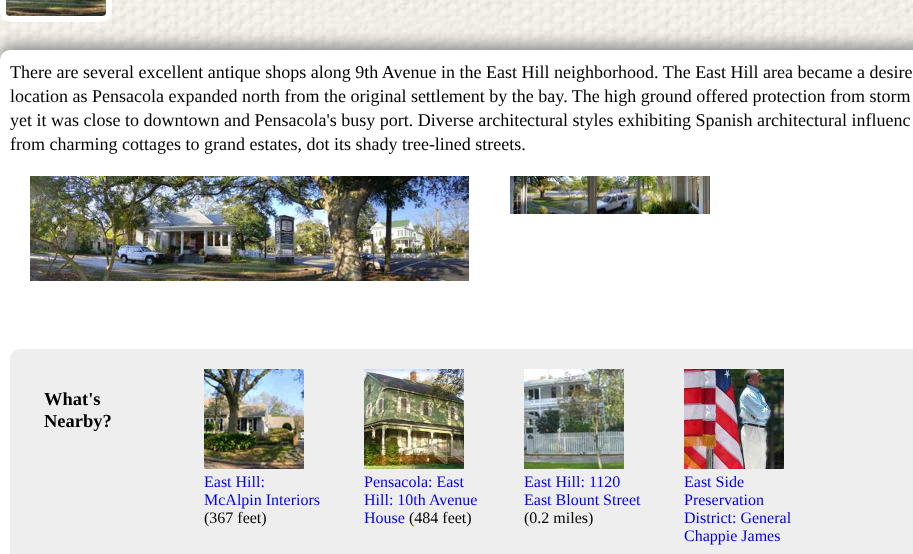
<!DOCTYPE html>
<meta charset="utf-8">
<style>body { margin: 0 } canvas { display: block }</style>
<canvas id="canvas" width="913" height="554"></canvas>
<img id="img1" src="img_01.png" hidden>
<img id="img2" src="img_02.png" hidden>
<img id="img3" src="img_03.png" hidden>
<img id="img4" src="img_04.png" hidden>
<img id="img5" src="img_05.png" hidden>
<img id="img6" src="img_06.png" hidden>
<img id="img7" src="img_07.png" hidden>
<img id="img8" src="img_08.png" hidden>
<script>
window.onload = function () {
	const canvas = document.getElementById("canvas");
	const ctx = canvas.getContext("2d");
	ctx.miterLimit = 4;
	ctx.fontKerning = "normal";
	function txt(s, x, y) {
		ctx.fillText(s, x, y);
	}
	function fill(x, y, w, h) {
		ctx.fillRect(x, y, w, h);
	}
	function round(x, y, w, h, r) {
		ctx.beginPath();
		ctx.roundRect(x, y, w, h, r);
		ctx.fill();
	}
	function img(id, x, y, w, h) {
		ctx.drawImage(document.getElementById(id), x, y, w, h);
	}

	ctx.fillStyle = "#FFFFFF";
	fill(0, 0, 913, 554);
	img("img1", 0, 0, 913, 60);
	ctx.fillStyle = "#888888";
	ctx.filter = "blur(7.5px)";
	ctx.beginPath();
	ctx.roundRect(0, 45, 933, 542, 10);
	ctx.fill();
	ctx.filter = "none";
	ctx.beginPath();
	ctx.roundRect(3, -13, 106, 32, 7);
	ctx.strokeStyle = "#FFFFFF";
	ctx.lineWidth = 6;
	ctx.stroke();
	img("img2", 6, 0, 100, 16);
	ctx.fillStyle = "#FFFFFF";
	round(0, 50, 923, 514, 10);
	img("img3", 30, 176, 439, 105);
	img("img4", 510, 176, 200, 38);
	ctx.fillStyle = "#EEEEEE";
	round(10, 349, 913, 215, 10);
	img("img5", 204, 369, 100, 100);
	img("img6", 364, 369, 100, 100);
	img("img7", 524, 369, 100, 100);
	img("img8", 684, 369, 100, 100);
	ctx.font = "18px Liberation Serif";
	ctx.fillStyle = "#000000";
	txt("There are several excellent antique shops along 9th Avenue in the East Hill neighborhood. The East Hill area became a desire", 10, 78);
	txt("location as Pensacola expanded north from the original settlement by the bay. The high ground offered protection from storm", 10, 102);
	txt("yet it was close to downtown and Pensacola's busy port. Diverse architectural styles exhibiting Spanish architectural influenc", 10, 126);
	txt("from charming cottages to grand estates, dot its shady tree-lined streets.", 10, 150);
	ctx.font = "bold 18.5px Liberation Serif";
	txt("What's", 44, 405);
	txt("Nearby?", 44, 427);
	ctx.font = "16px Liberation Serif";
	ctx.fillStyle = "#0000EE";
	txt("East Hill:", 204, 487);
	txt("McAlpin Interiors", 204, 505);
	ctx.fillStyle = "#000000";
	txt("(367 feet)", 204, 523);
	ctx.fillStyle = "#0000EE";
	txt("Pensacola: East", 364, 487);
	txt("Hill: 10th Avenue", 364, 505);
	txt("House", 364, 523);
	ctx.fillStyle = "#000000";
	txt("(484 feet)", 409, 523);
	ctx.fillStyle = "#0000EE";
	txt("East Hill: 1120", 524, 487);
	txt("East Blount Street", 524, 505);
	ctx.fillStyle = "#000000";
	txt("(0.2 miles)", 524, 523);
	ctx.fillStyle = "#0000EE";
	txt("East Side", 684, 487);
	txt("Preservation", 684, 505);
	txt("District: General", 684, 523);
	txt("Chappie James", 684, 541);
};
</script>
